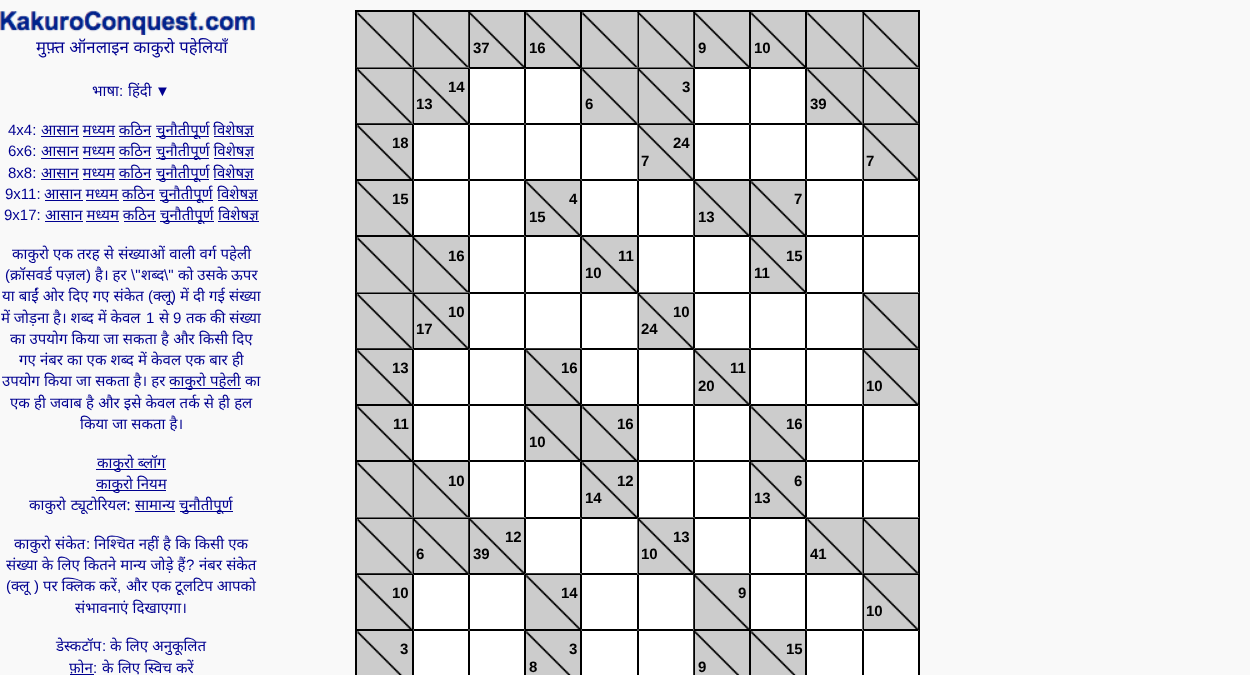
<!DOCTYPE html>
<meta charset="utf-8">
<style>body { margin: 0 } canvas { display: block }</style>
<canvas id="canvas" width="1250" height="675"></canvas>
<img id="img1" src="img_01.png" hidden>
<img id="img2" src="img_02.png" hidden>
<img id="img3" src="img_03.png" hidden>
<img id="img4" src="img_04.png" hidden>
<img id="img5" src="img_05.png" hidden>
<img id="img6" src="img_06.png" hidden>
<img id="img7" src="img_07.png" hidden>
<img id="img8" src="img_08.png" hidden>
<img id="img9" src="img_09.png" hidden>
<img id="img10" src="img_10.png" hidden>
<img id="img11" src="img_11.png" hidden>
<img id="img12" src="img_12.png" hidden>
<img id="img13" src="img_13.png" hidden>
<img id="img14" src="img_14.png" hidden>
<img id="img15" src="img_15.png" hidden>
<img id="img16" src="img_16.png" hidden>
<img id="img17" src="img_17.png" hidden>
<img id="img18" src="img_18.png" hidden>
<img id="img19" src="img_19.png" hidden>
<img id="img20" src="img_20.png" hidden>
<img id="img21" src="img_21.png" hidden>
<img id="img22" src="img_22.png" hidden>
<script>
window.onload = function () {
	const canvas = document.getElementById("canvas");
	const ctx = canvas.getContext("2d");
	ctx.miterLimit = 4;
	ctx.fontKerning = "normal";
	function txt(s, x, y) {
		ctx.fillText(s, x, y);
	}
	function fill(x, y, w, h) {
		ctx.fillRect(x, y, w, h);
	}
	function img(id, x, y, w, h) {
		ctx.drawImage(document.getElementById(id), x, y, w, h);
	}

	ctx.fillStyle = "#F9F9F9";
	fill(0, 0, 1250, 675);
	img("img1", 0, 10, 255, 25);
	ctx.fillStyle = "#000090";
	fill(41, 136, 38, 1);
	fill(156, 136, 53, 1);
	fill(214, 136, 40, 1);
	fill(83, 136, 32, 1);
	fill(119, 136, 32, 1);
	fill(41, 158, 38, 1);
	fill(156, 158, 53, 1);
	fill(83, 158, 32, 1);
	fill(119, 158, 32, 1);
	fill(214, 158, 40, 1);
	fill(41, 179, 38, 1);
	fill(156, 179, 53, 1);
	fill(214, 179, 40, 1);
	fill(83, 179, 32, 1);
	fill(119, 179, 32, 1);
	fill(45, 200, 38, 1);
	fill(160, 200, 53, 1);
	fill(218, 200, 40, 1);
	fill(86, 200, 33, 1);
	fill(123, 200, 32, 1);
	fill(45, 221, 38, 1);
	fill(160, 221, 54, 1);
	fill(218, 221, 41, 1);
	fill(86, 221, 33, 1);
	fill(124, 221, 32, 1);
	fill(170, 388, 71, 1);
	fill(96, 469, 70, 1);
	fill(96, 490, 70, 1);
	fill(135, 511, 40, 1);
	fill(180, 511, 53, 1);
	fill(70, 674, 24, 1);
	ctx.strokeStyle = "#000000";
	ctx.strokeRect(355.5, 10.5, 564, 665);
	img("img2", 357, 12, 55, 55);
	ctx.strokeRect(356.5, 11.5, 56, 56);
	img("img3", 412, 11, 56, 57);
	ctx.strokeRect(413.5, 11.5, 55, 56);
	img("img4", 468, 11, 56, 57);
	ctx.strokeRect(469.5, 11.5, 55, 56);
	img("img5", 526, 12, 54, 55);
	ctx.strokeRect(525.5, 11.5, 55, 56);
	img("img2", 582, 12, 55, 55);
	ctx.strokeRect(581.5, 11.5, 56, 56);
	img("img3", 637, 11, 56, 57);
	ctx.strokeRect(638.5, 11.5, 55, 56);
	img("img4", 693, 11, 56, 57);
	ctx.strokeRect(694.5, 11.5, 55, 56);
	img("img5", 751, 12, 54, 55);
	ctx.strokeRect(750.5, 11.5, 55, 56);
	img("img2", 807, 12, 55, 55);
	ctx.strokeRect(806.5, 11.5, 56, 56);
	img("img3", 862, 11, 56, 57);
	ctx.strokeRect(863.5, 11.5, 55, 56);
	img("img6", 356, 67, 57, 56);
	ctx.strokeRect(356.5, 68.5, 56, 55);
	img("img7", 412, 67, 57, 57);
	ctx.strokeRect(413.5, 68.5, 55, 55);
	ctx.fillStyle = "#FFFFFF";
	ctx.beginPath();
	ctx.rect(469.5, 68.5, 55, 55);
	ctx.fill();
	ctx.stroke();
	ctx.beginPath();
	ctx.rect(525.5, 68.5, 55, 55);
	ctx.fill();
	ctx.stroke();
	img("img6", 581, 67, 57, 56);
	ctx.strokeRect(581.5, 68.5, 56, 55);
	img("img7", 637, 67, 57, 57);
	ctx.strokeRect(638.5, 68.5, 55, 55);
	ctx.beginPath();
	ctx.rect(694.5, 68.5, 55, 55);
	ctx.fill();
	ctx.stroke();
	ctx.beginPath();
	ctx.rect(750.5, 68.5, 55, 55);
	ctx.fill();
	ctx.stroke();
	img("img6", 806, 67, 57, 56);
	ctx.strokeRect(806.5, 68.5, 56, 55);
	img("img8", 862, 67, 57, 57);
	ctx.strokeRect(863.5, 68.5, 55, 55);
	img("img9", 356, 123, 57, 56);
	ctx.strokeRect(356.5, 124.5, 56, 55);
	ctx.beginPath();
	ctx.rect(413.5, 124.5, 55, 55);
	ctx.fill();
	ctx.stroke();
	ctx.beginPath();
	ctx.rect(469.5, 124.5, 55, 55);
	ctx.fill();
	ctx.stroke();
	ctx.beginPath();
	ctx.rect(525.5, 124.5, 55, 55);
	ctx.fill();
	ctx.stroke();
	ctx.beginPath();
	ctx.rect(581.5, 124.5, 56, 55);
	ctx.fill();
	ctx.stroke();
	img("img10", 637, 123, 57, 57);
	ctx.strokeRect(638.5, 124.5, 55, 55);
	ctx.beginPath();
	ctx.rect(694.5, 124.5, 55, 55);
	ctx.fill();
	ctx.stroke();
	ctx.beginPath();
	ctx.rect(750.5, 124.5, 55, 55);
	ctx.fill();
	ctx.stroke();
	ctx.beginPath();
	ctx.rect(806.5, 124.5, 56, 55);
	ctx.fill();
	ctx.stroke();
	img("img10", 862, 123, 57, 57);
	ctx.strokeRect(863.5, 124.5, 55, 55);
	img("img11", 357, 181, 55, 54);
	ctx.strokeRect(356.5, 180.5, 56, 55);
	ctx.beginPath();
	ctx.rect(413.5, 180.5, 55, 55);
	ctx.fill();
	ctx.stroke();
	ctx.beginPath();
	ctx.rect(469.5, 180.5, 55, 55);
	ctx.fill();
	ctx.stroke();
	img("img12", 526, 181, 54, 54);
	ctx.strokeRect(525.5, 180.5, 55, 55);
	ctx.beginPath();
	ctx.rect(581.5, 180.5, 56, 55);
	ctx.fill();
	ctx.stroke();
	ctx.beginPath();
	ctx.rect(638.5, 180.5, 55, 55);
	ctx.fill();
	ctx.stroke();
	img("img12", 751, 181, 54, 54);
	ctx.strokeRect(750.5, 180.5, 55, 55);
	ctx.beginPath();
	ctx.rect(806.5, 180.5, 56, 55);
	ctx.fill();
	ctx.stroke();
	ctx.beginPath();
	ctx.rect(863.5, 180.5, 55, 55);
	ctx.fill();
	ctx.stroke();
	img("img13", 693, 180, 56, 56);
	ctx.strokeRect(694.5, 180.5, 55, 55);
	img("img2", 357, 237, 55, 55);
	ctx.strokeRect(356.5, 236.5, 56, 56);
	img("img3", 412, 236, 56, 57);
	ctx.strokeRect(413.5, 236.5, 55, 56);
	ctx.beginPath();
	ctx.rect(469.5, 236.5, 55, 56);
	ctx.fill();
	ctx.stroke();
	ctx.beginPath();
	ctx.rect(525.5, 236.5, 55, 56);
	ctx.fill();
	ctx.stroke();
	img("img2", 582, 237, 55, 55);
	ctx.strokeRect(581.5, 236.5, 56, 56);
	ctx.beginPath();
	ctx.rect(638.5, 236.5, 55, 56);
	ctx.fill();
	ctx.stroke();
	ctx.beginPath();
	ctx.rect(694.5, 236.5, 55, 56);
	ctx.fill();
	ctx.stroke();
	img("img5", 751, 237, 54, 55);
	ctx.strokeRect(750.5, 236.5, 55, 56);
	ctx.beginPath();
	ctx.rect(806.5, 236.5, 56, 56);
	ctx.fill();
	ctx.stroke();
	ctx.beginPath();
	ctx.rect(863.5, 236.5, 55, 56);
	ctx.fill();
	ctx.stroke();
	img("img6", 356, 292, 57, 56);
	ctx.strokeRect(356.5, 293.5, 56, 55);
	img("img8", 412, 292, 57, 57);
	ctx.strokeRect(413.5, 293.5, 55, 55);
	ctx.beginPath();
	ctx.rect(469.5, 293.5, 55, 55);
	ctx.fill();
	ctx.stroke();
	ctx.beginPath();
	ctx.rect(525.5, 293.5, 55, 55);
	ctx.fill();
	ctx.stroke();
	ctx.beginPath();
	ctx.rect(581.5, 293.5, 56, 55);
	ctx.fill();
	ctx.stroke();
	img("img14", 637, 292, 57, 57);
	ctx.strokeRect(638.5, 293.5, 55, 55);
	ctx.beginPath();
	ctx.rect(694.5, 293.5, 55, 55);
	ctx.fill();
	ctx.stroke();
	ctx.beginPath();
	ctx.rect(750.5, 293.5, 55, 55);
	ctx.fill();
	ctx.stroke();
	ctx.beginPath();
	ctx.rect(806.5, 293.5, 56, 55);
	ctx.fill();
	ctx.stroke();
	img("img14", 862, 292, 57, 57);
	ctx.strokeRect(863.5, 293.5, 55, 55);
	img("img9", 356, 348, 57, 56);
	ctx.strokeRect(356.5, 349.5, 56, 55);
	ctx.beginPath();
	ctx.rect(413.5, 349.5, 55, 55);
	ctx.fill();
	ctx.stroke();
	ctx.beginPath();
	ctx.rect(469.5, 349.5, 55, 55);
	ctx.fill();
	ctx.stroke();
	img("img15", 525, 348, 57, 56);
	ctx.strokeRect(525.5, 349.5, 55, 55);
	ctx.beginPath();
	ctx.rect(581.5, 349.5, 56, 55);
	ctx.fill();
	ctx.stroke();
	ctx.beginPath();
	ctx.rect(638.5, 349.5, 55, 55);
	ctx.fill();
	ctx.stroke();
	img("img16", 693, 348, 57, 57);
	ctx.strokeRect(694.5, 349.5, 55, 55);
	ctx.beginPath();
	ctx.rect(750.5, 349.5, 55, 55);
	ctx.fill();
	ctx.stroke();
	ctx.beginPath();
	ctx.rect(806.5, 349.5, 56, 55);
	ctx.fill();
	ctx.stroke();
	img("img10", 862, 348, 57, 57);
	ctx.strokeRect(863.5, 349.5, 55, 55);
	img("img11", 357, 406, 55, 54);
	ctx.strokeRect(356.5, 405.5, 56, 55);
	ctx.beginPath();
	ctx.rect(413.5, 405.5, 55, 55);
	ctx.fill();
	ctx.stroke();
	ctx.beginPath();
	ctx.rect(469.5, 405.5, 55, 55);
	ctx.fill();
	ctx.stroke();
	img("img11", 582, 406, 55, 54);
	ctx.strokeRect(581.5, 405.5, 56, 55);
	ctx.beginPath();
	ctx.rect(638.5, 405.5, 55, 55);
	ctx.fill();
	ctx.stroke();
	ctx.beginPath();
	ctx.rect(694.5, 405.5, 55, 55);
	ctx.fill();
	ctx.stroke();
	img("img12", 751, 406, 54, 54);
	ctx.strokeRect(750.5, 405.5, 55, 55);
	ctx.beginPath();
	ctx.rect(806.5, 405.5, 56, 55);
	ctx.fill();
	ctx.stroke();
	ctx.beginPath();
	ctx.rect(863.5, 405.5, 55, 55);
	ctx.fill();
	ctx.stroke();
	img("img12", 526, 406, 54, 54);
	ctx.strokeRect(525.5, 405.5, 55, 55);
	img("img2", 357, 462, 55, 55);
	ctx.strokeRect(356.5, 461.5, 56, 56);
	img("img3", 412, 461, 56, 57);
	ctx.strokeRect(413.5, 461.5, 55, 56);
	ctx.beginPath();
	ctx.rect(469.5, 461.5, 55, 56);
	ctx.fill();
	ctx.stroke();
	ctx.beginPath();
	ctx.rect(525.5, 461.5, 55, 56);
	ctx.fill();
	ctx.stroke();
	img("img2", 582, 462, 55, 55);
	ctx.strokeRect(581.5, 461.5, 56, 56);
	ctx.beginPath();
	ctx.rect(638.5, 461.5, 55, 56);
	ctx.fill();
	ctx.stroke();
	ctx.beginPath();
	ctx.rect(694.5, 461.5, 55, 56);
	ctx.fill();
	ctx.stroke();
	img("img5", 751, 462, 54, 55);
	ctx.strokeRect(750.5, 461.5, 55, 56);
	ctx.beginPath();
	ctx.rect(806.5, 461.5, 56, 56);
	ctx.fill();
	ctx.stroke();
	ctx.beginPath();
	ctx.rect(863.5, 461.5, 55, 56);
	ctx.fill();
	ctx.stroke();
	img("img6", 356, 517, 57, 56);
	ctx.strokeRect(356.5, 518.5, 56, 55);
	img("img8", 412, 517, 57, 57);
	ctx.strokeRect(413.5, 518.5, 55, 55);
	img("img17", 468, 517, 57, 57);
	ctx.strokeRect(469.5, 518.5, 55, 55);
	ctx.beginPath();
	ctx.rect(525.5, 518.5, 55, 55);
	ctx.fill();
	ctx.stroke();
	ctx.beginPath();
	ctx.rect(581.5, 518.5, 56, 55);
	ctx.fill();
	ctx.stroke();
	img("img14", 637, 517, 57, 57);
	ctx.strokeRect(638.5, 518.5, 55, 55);
	ctx.beginPath();
	ctx.rect(694.5, 518.5, 55, 55);
	ctx.fill();
	ctx.stroke();
	ctx.beginPath();
	ctx.rect(750.5, 518.5, 55, 55);
	ctx.fill();
	ctx.stroke();
	img("img18", 806, 517, 57, 56);
	ctx.strokeRect(806.5, 518.5, 56, 55);
	img("img19", 862, 517, 57, 57);
	ctx.strokeRect(863.5, 518.5, 55, 55);
	img("img9", 356, 573, 57, 56);
	ctx.strokeRect(356.5, 574.5, 56, 55);
	ctx.beginPath();
	ctx.rect(413.5, 574.5, 55, 55);
	ctx.fill();
	ctx.stroke();
	ctx.beginPath();
	ctx.rect(469.5, 574.5, 55, 55);
	ctx.fill();
	ctx.stroke();
	img("img15", 525, 573, 57, 56);
	ctx.strokeRect(525.5, 574.5, 55, 55);
	ctx.beginPath();
	ctx.rect(581.5, 574.5, 56, 55);
	ctx.fill();
	ctx.stroke();
	ctx.beginPath();
	ctx.rect(638.5, 574.5, 55, 55);
	ctx.fill();
	ctx.stroke();
	img("img16", 693, 573, 57, 57);
	ctx.strokeRect(694.5, 574.5, 55, 55);
	ctx.beginPath();
	ctx.rect(750.5, 574.5, 55, 55);
	ctx.fill();
	ctx.stroke();
	ctx.beginPath();
	ctx.rect(806.5, 574.5, 56, 55);
	ctx.fill();
	ctx.stroke();
	img("img10", 862, 573, 57, 57);
	ctx.strokeRect(863.5, 574.5, 55, 55);
	img("img20", 357, 631, 55, 44);
	ctx.strokeRect(356.5, 630.5, 56, 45);
	ctx.beginPath();
	ctx.rect(413.5, 630.5, 55, 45);
	ctx.fill();
	ctx.stroke();
	ctx.beginPath();
	ctx.rect(469.5, 630.5, 55, 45);
	ctx.fill();
	ctx.stroke();
	img("img21", 526, 631, 54, 44);
	ctx.strokeRect(525.5, 630.5, 55, 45);
	ctx.beginPath();
	ctx.rect(581.5, 630.5, 56, 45);
	ctx.fill();
	ctx.stroke();
	ctx.beginPath();
	ctx.rect(638.5, 630.5, 55, 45);
	ctx.fill();
	ctx.stroke();
	img("img21", 751, 631, 54, 44);
	ctx.strokeRect(750.5, 630.5, 55, 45);
	ctx.beginPath();
	ctx.rect(806.5, 630.5, 56, 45);
	ctx.fill();
	ctx.stroke();
	ctx.beginPath();
	ctx.rect(863.5, 630.5, 55, 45);
	ctx.fill();
	ctx.stroke();
	img("img22", 693, 630, 56, 45);
	ctx.strokeRect(694.5, 630.5, 55, 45);
	ctx.wordSpacing = "0.25px";
	ctx.font = "16.75px Noto Sans";
	ctx.fillStyle = "#000090";
	txt("मुफ़्त ऑनलाइन काकुरो पहेलियाँ", 36, 53);
	ctx.wordSpacing = "0px";
	ctx.font = "15px Noto Sans";
	txt("भाषा", 92, 96);
	ctx.font = "15px Liberation Sans";
	txt(":", 119, 96);
	ctx.font = "15px Noto Sans";
	txt("हिंदी", 128, 96);
	ctx.font = "15px Liberation Sans";
	txt("▼", 155, 96);
	txt("4x4:", 8, 135);
	ctx.font = "15px Noto Sans";
	txt("आसान मध्यम कठिन", 41, 135);
	txt("चुनौतीपूर्ण", 156, 135);
	txt("विशेषज्ञ", 213, 135);
	ctx.font = "15px Liberation Sans";
	txt("6x6:", 8, 156);
	ctx.font = "15px Noto Sans";
	txt("आसान मध्यम कठिन", 41, 156);
	txt("चुनौतीपूर्ण विशेषज्ञ", 156, 156);
	ctx.font = "15px Liberation Sans";
	txt("8x8:", 8, 178);
	ctx.font = "15px Noto Sans";
	txt("आसान मध्यम कठिन", 41, 178);
	txt("चुनौतीपूर्ण", 156, 178);
	txt("विशेषज्ञ", 213, 178);
	ctx.font = "15px Liberation Sans";
	txt("9x11:", 5, 199);
	ctx.font = "15px Noto Sans";
	txt("आसान मध्यम कठिन", 44, 199);
	txt("चुनौतीपूर्ण", 159, 199);
	txt("विशेषज्ञ", 217, 199);
	ctx.font = "15px Liberation Sans";
	txt("9x17:", 4, 220);
	ctx.font = "15px Noto Sans";
	txt("आसान मध्यम कठिन", 45, 220);
	txt("चुनौतीपूर्ण", 160, 220);
	txt("विशेषज्ञ", 218, 220);
	ctx.wordSpacing = "0.25px";
	txt("काकुरो एक तरह से संख्याओं वाली वर्ग पहेली", 12, 259);
	ctx.wordSpacing = "0px";
	ctx.font = "15px Liberation Sans";
	txt("(", 5, 280);
	ctx.font = "15px Noto Sans";
	txt("क्रॉसवर्ड पज़ल", 10, 280);
	ctx.font = "15px Liberation Sans";
	txt(")", 86, 280);
	ctx.font = "15px Noto Sans";
	txt("है। हर", 95, 280);
	ctx.font = "15px Liberation Sans";
	txt("\\\"", 131, 280);
	ctx.font = "15px Noto Sans";
	txt("शब्द", 141, 280);
	ctx.font = "15px Liberation Sans";
	txt("\\\"", 164, 280);
	ctx.font = "15px Noto Sans";
	txt("को उसके ऊपर", 178, 280);
	ctx.wordSpacing = "0.25px";
	txt("या बाईं ओर दिए गए संकेत", 2, 301);
	ctx.wordSpacing = "0px";
	ctx.font = "15px Liberation Sans";
	txt("(", 148, 301);
	ctx.font = "15px Noto Sans";
	txt("क्लू", 153, 301);
	ctx.font = "15px Liberation Sans";
	txt(")", 171, 301);
	ctx.wordSpacing = "0.25px";
	ctx.font = "15px Noto Sans";
	txt("में दी गई संख्या", 180, 301);
	ctx.wordSpacing = "0px";
	txt("में जोड़ना है। शब्द में केवल", 1, 323);
	ctx.font = "15px Liberation Sans";
	txt("1", 146, 323);
	ctx.font = "15px Noto Sans";
	txt("से", 159, 323);
	ctx.font = "15px Liberation Sans";
	txt("9", 173, 323);
	ctx.font = "15px Noto Sans";
	txt("तक की संख्या", 186, 323);
	ctx.wordSpacing = "0.25px";
	txt("का उपयोग किया जा सकता है और किसी दिए", 10, 344);
	txt("गए नंबर का एक शब्द में केवल एक बार ही", 19, 365);
	txt("उपयोग किया जा सकता है। हर", 2, 386);
	txt("काकुरो पहेली", 169, 386);
	ctx.wordSpacing = "0px";
	txt("का", 245, 386);
	ctx.wordSpacing = "0.25px";
	txt("एक ही जवाब है और इसे केवल तर्क से ही हल", 10, 408);
	txt("किया जा सकता है।", 80, 429);
	ctx.wordSpacing = "0px";
	txt("काकुरो ब्लॉग", 97, 468);
	txt("काकुरो नियम", 96, 489);
	ctx.wordSpacing = "1px";
	txt("काकुरो ट्यूटोरियल:", 29, 510);
	ctx.wordSpacing = "0px";
	txt("सामान्य", 135, 510);
	txt("चुनौतीपूर्ण", 179, 510);
	ctx.wordSpacing = "0.25px";
	txt("काकुरो संकेत", 14, 549);
	ctx.wordSpacing = "0px";
	ctx.font = "15px Liberation Sans";
	txt(":", 86, 549);
	ctx.wordSpacing = "0.25px";
	ctx.font = "15px Noto Sans";
	txt("निश्चित नहीं है कि किसी एक", 94, 549);
	txt("संख्या के लिए कितने मान्य जोड़े हैं", 6, 570);
	ctx.wordSpacing = "0px";
	ctx.font = "15px Liberation Sans";
	txt("?", 186, 570);
	ctx.wordSpacing = "0.25px";
	ctx.font = "15px Noto Sans";
	txt("नंबर संकेत", 199, 570);
	ctx.wordSpacing = "0px";
	ctx.font = "15px Liberation Sans";
	txt("(", 6, 591);
	ctx.font = "15px Noto Sans";
	txt("क्लू", 11, 591);
	ctx.font = "15px Liberation Sans";
	txt(")", 34, 591);
	ctx.font = "15px Noto Sans";
	txt("पर क्लिक करें", 43, 591);
	ctx.font = "15px Liberation Sans";
	txt(",", 117, 591);
	ctx.font = "15px Noto Sans";
	txt("और एक टूलटिप आपको", 126, 591);
	ctx.wordSpacing = "0.25px";
	txt("संभावनाएं दिखाएगा।", 75, 613);
	ctx.wordSpacing = "0px";
	txt("डेस्कटॉप", 56, 651);
	ctx.font = "15px Liberation Sans";
	txt(":", 102, 651);
	ctx.wordSpacing = "0.25px";
	ctx.font = "15px Noto Sans";
	txt("के लिए अनुकूलित", 110, 651);
	ctx.wordSpacing = "0px";
	txt("फ़ोन", 69, 673);
	ctx.font = "15px Liberation Sans";
	txt(":", 93, 673);
	ctx.wordSpacing = "0.25px";
	ctx.font = "15px Noto Sans";
	txt("के लिए स्विच करें", 102, 673);
	ctx.wordSpacing = "0px";
	ctx.font = "bold 15px Liberation Sans";
	ctx.fillStyle = "#000000";
	txt("37", 473, 53);
	txt("16", 529, 53);
	txt("9", 698, 53);
	txt("10", 754, 53);
	txt("14", 448, 92);
	txt("13", 416, 109);
	txt("3", 682, 92);
	txt("6", 585, 109);
	txt("39", 810, 109);
	txt("18", 392, 148);
	txt("24", 673, 148);
	txt("7", 641, 166);
	txt("7", 866, 166);
	txt("15", 392, 204);
	txt("4", 569, 204);
	txt("15", 529, 222);
	txt("7", 794, 204);
	txt("13", 698, 222);
	txt("16", 448, 261);
	txt("11", 618, 261);
	txt("10", 585, 278);
	txt("15", 786, 261);
	txt("11", 754, 278);
	txt("10", 448, 317);
	txt("17", 416, 334);
	txt("10", 673, 317);
	txt("24", 641, 334);
	txt("13", 392, 373);
	txt("16", 561, 373);
	txt("11", 730, 373);
	txt("20", 698, 391);
	txt("10", 866, 391);
	txt("11", 393, 429);
	txt("16", 617, 429);
	txt("16", 786, 429);
	txt("10", 529, 447);
	txt("10", 448, 486);
	txt("12", 617, 486);
	txt("14", 585, 503);
	txt("6", 794, 486);
	txt("13", 754, 503);
	txt("6", 416, 559);
	txt("12", 505, 542);
	txt("39", 473, 559);
	txt("13", 673, 542);
	txt("10", 641, 559);
	txt("41", 810, 559);
	txt("10", 392, 598);
	txt("14", 561, 598);
	txt("9", 738, 598);
	txt("10", 866, 616);
	txt("3", 400, 654);
	txt("3", 569, 654);
	txt("8", 529, 672);
	txt("15", 786, 654);
	txt("9", 698, 672);
};
</script>
